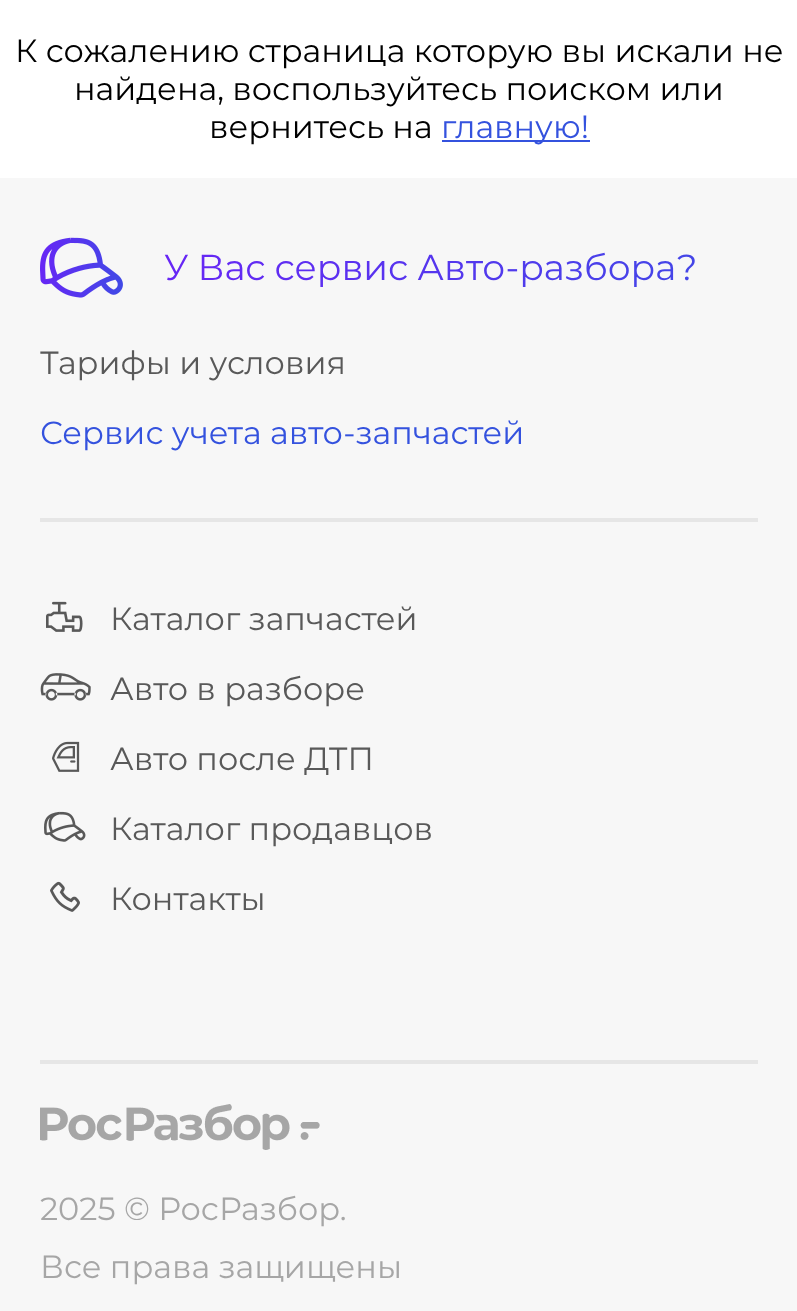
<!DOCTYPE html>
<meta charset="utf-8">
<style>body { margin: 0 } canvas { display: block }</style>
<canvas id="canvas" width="797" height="1311"></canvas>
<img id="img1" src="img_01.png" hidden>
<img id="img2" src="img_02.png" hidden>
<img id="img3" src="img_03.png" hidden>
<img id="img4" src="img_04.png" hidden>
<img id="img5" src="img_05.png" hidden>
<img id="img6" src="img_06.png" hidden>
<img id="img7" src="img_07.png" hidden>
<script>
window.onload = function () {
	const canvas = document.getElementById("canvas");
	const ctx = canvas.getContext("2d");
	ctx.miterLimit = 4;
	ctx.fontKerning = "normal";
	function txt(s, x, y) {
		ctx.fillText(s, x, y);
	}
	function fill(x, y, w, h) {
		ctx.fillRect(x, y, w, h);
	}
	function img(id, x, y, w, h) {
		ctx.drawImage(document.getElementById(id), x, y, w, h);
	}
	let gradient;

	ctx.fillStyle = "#F7F7F7";
	fill(0, 0, 797, 1311);
	ctx.fillStyle = "#FFFFFF";
	fill(0, 0, 797, 178);
	ctx.fillStyle = "#3452DE";
	fill(442, 140, 148, 2);
	ctx.fillStyle = "#E6E6E6";
	fill(40, 518, 718, 4);
	img("img1", 40, 237, 83, 61);
	fill(40, 1060, 718, 4);
	img("img2", 46, 601, 37, 31);
	img("img3", 40, 673, 51, 28);
	img("img4", 52, 741, 28, 31);
	img("img5", 44, 811, 42, 31);
	img("img6", 50, 881, 30, 31);
	img("img7", 40, 1104, 280, 46);
	ctx.font = "32px Montserrat";
	ctx.fillStyle = "#000000";
	txt("К сожалению страница которую вы искали не", 15, 62);
	txt("найдена, воспользуйтесь поиском или", 74, 100);
	txt("вернитесь на", 209, 138);
	ctx.fillStyle = "#3452DE";
	txt("главную!", 441, 138);
	ctx.wordSpacing = "-0.5px";
	ctx.font = "36px Montserrat";
	gradient = ctx.createLinearGradient(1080, 293, 21, 250);
	gradient.addColorStop(0, "#2A5DDD");
	gradient.addColorStop(1, "#711DF9");
	ctx.fillStyle = gradient;
	txt("У Вас сервис Авто-разбора?", 164, 280);
	ctx.wordSpacing = "0px";
	ctx.font = "32px Montserrat";
	ctx.fillStyle = "#595959";
	txt("Тарифы и условия", 40, 374);
	ctx.fillStyle = "#3452DE";
	txt("Сервис учета авто-запчастей", 40, 444);
	ctx.fillStyle = "#595959";
	txt("Каталог запчастей", 110, 630);
	txt("Авто в разборе", 110, 700);
	txt("Авто после ДТП", 110, 770);
	txt("Каталог продавцов", 110, 840);
	txt("Контакты", 110, 910);
	ctx.fillStyle = "#A6A6A6";
	txt("2025 © РосРазбор.", 40, 1220);
	txt("Все права защищены", 40, 1278);
};
</script>
